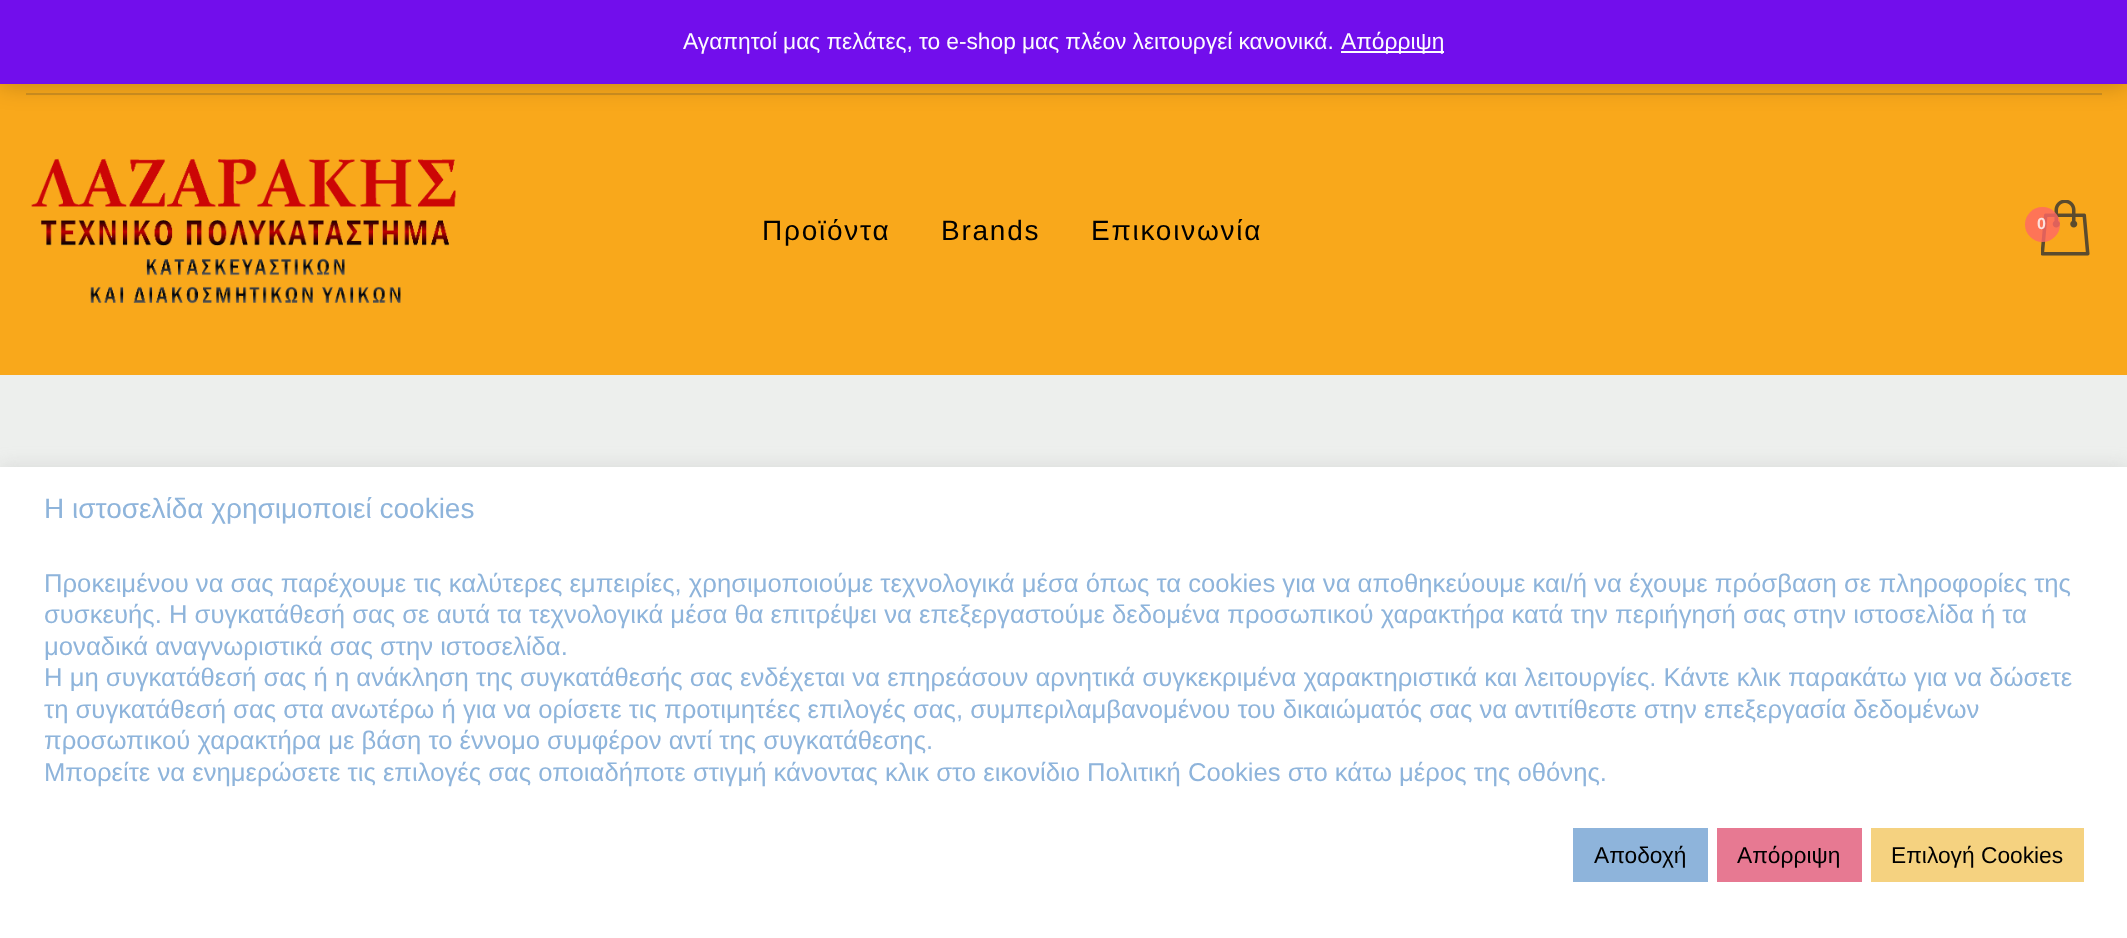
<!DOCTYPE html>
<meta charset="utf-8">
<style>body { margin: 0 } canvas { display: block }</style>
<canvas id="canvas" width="2127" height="938"></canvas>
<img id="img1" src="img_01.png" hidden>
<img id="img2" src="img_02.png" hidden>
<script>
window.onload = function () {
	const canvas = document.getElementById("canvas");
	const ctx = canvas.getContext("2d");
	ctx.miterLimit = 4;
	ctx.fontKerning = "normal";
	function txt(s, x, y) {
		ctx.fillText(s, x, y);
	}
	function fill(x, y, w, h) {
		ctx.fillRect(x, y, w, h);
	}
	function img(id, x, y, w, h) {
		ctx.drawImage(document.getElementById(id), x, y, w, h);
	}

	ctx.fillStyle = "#EDEFED";
	fill(0, 0, 2127, 938);
	ctx.fillStyle = "#F9A81B";
	fill(0, 84, 2127, 291);
	ctx.fillStyle = "#D19120";
	fill(26, 93, 2076, 2);
	ctx.fillStyle = "rgba(0, 0, 0, 0.2)";
	ctx.filter = "blur(11.5px)";
	ctx.beginPath();
	ctx.rect(0, 2, 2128, 84);
	ctx.fill();
	ctx.filter = "none";
	ctx.fillStyle = "#720EEC";
	fill(0, 0, 2127, 84);
	ctx.fillStyle = "#FCFBFE";
	fill(1341, 51, 103, 2);
	img("img1", 31, 158, 425, 146);
	img("img2", 2041, 200, 49, 56);
	ctx.fillStyle = "rgba(255, 102, 102, 0.8)";
	ctx.beginPath();
	ctx.arc(2042.5, 224.5, 17.5, 0, Math.PI * 2);
	ctx.fill();
	ctx.fillStyle = "rgba(172, 171, 171, 0.3)";
	ctx.filter = "blur(9px)";
	ctx.beginPath();
	ctx.rect(0, 466, 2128, 470);
	ctx.fill();
	ctx.filter = "none";
	ctx.fillStyle = "#FFFFFF";
	fill(0, 467, 2127, 471);
	ctx.fillStyle = "#8EB4DB";
	fill(1573, 828, 135, 54);
	ctx.fillStyle = "#E77992";
	fill(1717, 828, 145, 54);
	ctx.fillStyle = "#F5D280";
	fill(1871, 828, 213, 54);
	ctx.wordSpacing = "-0.25px";
	ctx.font = "22.75px Liberation Sans";
	ctx.fillStyle = "#FCFBFE";
	txt("Αγαπητοί μας πελάτες, το e-shop μας πλέον λειτουργεί κανονικά.", 683, 49);
	ctx.wordSpacing = "0px";
	txt("Απόρριψη", 1341, 49);
	ctx.letterSpacing = "1.75px";
	ctx.font = "28px Liberation Sans";
	ctx.fillStyle = "#000000";
	txt("Προϊόντα", 762, 240);
	txt("Brands", 941, 240);
	txt("Επικοινωνία", 1091, 240);
	ctx.letterSpacing = "0px";
	ctx.font = "bold 16px Liberation Sans";
	ctx.fillStyle = "#FDE2DE";
	txt("0", 2037, 229);
	ctx.font = "28px Liberation Sans";
	ctx.fillStyle = "#8EB4DB";
	txt("Η ιστοσελίδα χρησιμοποιεί cookies", 44, 518);
	ctx.font = "25.67px Liberation Sans";
	txt("Προκειμένου να σας παρέχουμε τις καλύτερες εμπειρίες, χρησιμοποιούμε τεχνολογικά μέσα όπως τα cookies για να αποθηκεύουμε και/ή να έχουμε πρόσβαση σε πληροφορίες της", 44, 592);
	txt("συσκευής. Η συγκατάθεσή σας σε αυτά τα τεχνολογικά μέσα θα επιτρέψει να επεξεργαστούμε δεδομένα προσωπικού χαρακτήρα κατά την περιήγησή σας στην ιστοσελίδα ή τα", 44, 623);
	txt("μοναδικά αναγνωριστικά σας στην ιστοσελίδα.", 44, 655);
	txt("Η μη συγκατάθεσή σας ή η ανάκληση της συγκατάθεσής σας ενδέχεται να επηρεάσουν αρνητικά συγκεκριμένα χαρακτηριστικά και λειτουργίες. Κάντε κλικ παρακάτω για να δώσετε", 44, 686);
	txt("τη συγκατάθεσή σας στα ανωτέρω ή για να ορίσετε τις προτιμητέες επιλογές σας, συμπεριλαμβανομένου του δικαιώματός σας να αντιτίθεστε στην επεξεργασία δεδομένων", 44, 718);
	txt("προσωπικού χαρακτήρα με βάση το έννομο συμφέρον αντί της συγκατάθεσης.", 44, 749);
	txt("Μπορείτε να ενημερώσετε τις επιλογές σας οποιαδήποτε στιγμή κάνοντας κλικ στο εικονίδιο Πολιτική Cookies στο κάτω μέρος της οθόνης.", 44, 781);
	ctx.font = "22.75px Liberation Sans";
	ctx.fillStyle = "#000000";
	txt("Αποδοχή", 1594, 863);
	txt("Απόρριψη", 1737, 863);
	txt("Επιλογή Cookies", 1891, 863);
};
</script>
